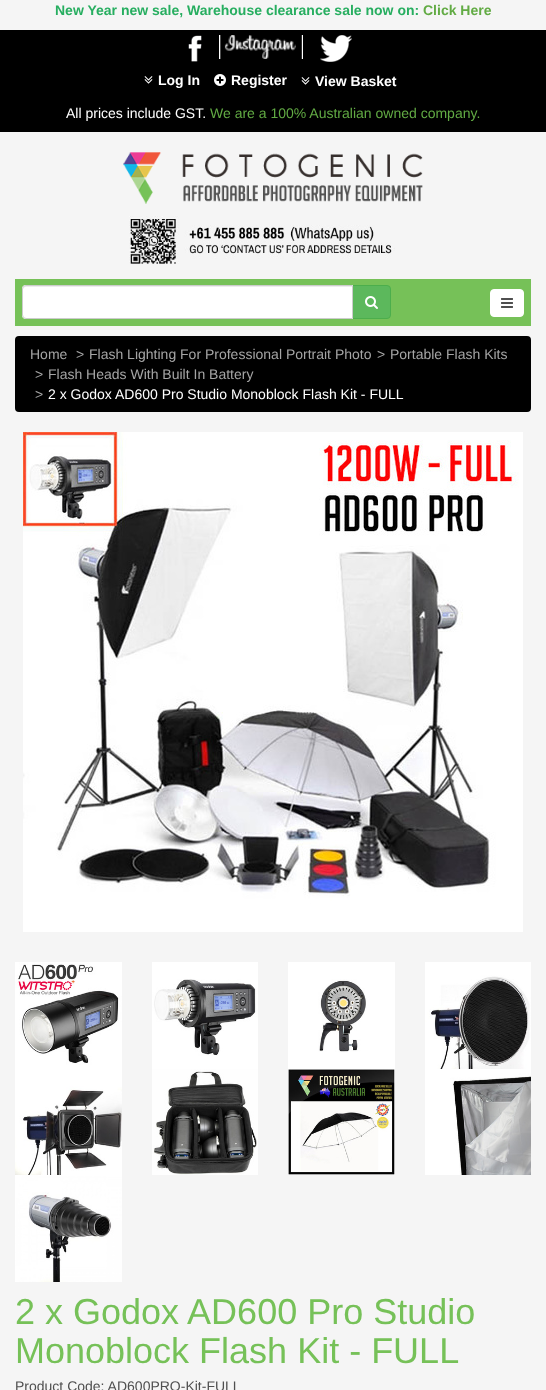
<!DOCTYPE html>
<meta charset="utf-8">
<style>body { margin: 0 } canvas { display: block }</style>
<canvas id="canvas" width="546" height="1390"></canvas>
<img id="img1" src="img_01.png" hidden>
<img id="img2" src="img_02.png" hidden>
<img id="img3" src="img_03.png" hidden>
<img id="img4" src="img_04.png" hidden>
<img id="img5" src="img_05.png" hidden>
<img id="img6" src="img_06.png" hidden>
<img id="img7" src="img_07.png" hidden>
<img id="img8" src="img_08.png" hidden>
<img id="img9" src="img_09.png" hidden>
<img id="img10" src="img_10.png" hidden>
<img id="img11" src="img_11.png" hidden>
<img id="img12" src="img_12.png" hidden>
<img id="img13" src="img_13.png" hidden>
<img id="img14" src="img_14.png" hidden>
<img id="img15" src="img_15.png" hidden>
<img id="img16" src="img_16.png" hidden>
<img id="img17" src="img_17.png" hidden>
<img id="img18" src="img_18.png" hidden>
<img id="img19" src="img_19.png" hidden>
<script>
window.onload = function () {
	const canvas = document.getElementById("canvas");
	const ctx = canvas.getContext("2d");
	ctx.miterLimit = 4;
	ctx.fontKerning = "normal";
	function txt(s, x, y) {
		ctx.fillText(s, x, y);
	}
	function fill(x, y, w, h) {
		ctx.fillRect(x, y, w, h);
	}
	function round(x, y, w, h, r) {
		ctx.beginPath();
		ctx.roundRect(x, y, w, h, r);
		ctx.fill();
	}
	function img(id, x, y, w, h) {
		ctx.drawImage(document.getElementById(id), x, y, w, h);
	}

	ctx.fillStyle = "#F5F5F5";
	fill(0, 0, 546, 1390);
	ctx.fillStyle = "#000000";
	fill(0, 30, 546, 102);
	img("img1", 188, 35, 14, 27);
	img("img2", 219, 35, 84, 24);
	img("img3", 320, 35, 32, 27);
	img("img4", 144, 76, 9, 8);
	img("img5", 214, 74, 12, 12);
	img("img4", 301, 77, 9, 8);
	img("img6", 123, 152, 300, 52);
	img("img7", 129, 216, 266, 48);
	ctx.fillStyle = "#76C158";
	fill(15, 279, 516, 47);
	ctx.fillStyle = "#5CB85C";
	ctx.beginPath();
	ctx.roundRect(352.5, 285.5, 38, 33, [0, 3.5, 3.5, 0]);
	ctx.fill();
	ctx.strokeStyle = "#4CAE4C";
	ctx.stroke();
	ctx.fillStyle = "#FFFFFF";
	ctx.beginPath();
	ctx.roundRect(22, 285, 331, 34, [4, 0, 0, 4]);
	ctx.fill();
	ctx.fillStyle = "#ECECEC";
	ctx.beginPath();
	ctx.moveTo(26, 287);
	ctx.lineTo(352, 287);
	ctx.lineTo(352, 286);
	ctx.lineTo(26, 286);
	ctx.bezierCurveTo(24, 286, 23, 288, 23, 290);
	ctx.bezierCurveTo(23, 288, 24, 287, 26, 287);
	ctx.closePath();
	ctx.fill();
	ctx.beginPath();
	ctx.roundRect(22.5, 285.5, 330, 33, [3.5, 0, 0, 3.5]);
	ctx.strokeStyle = "#CCCCCC";
	ctx.stroke();
	img("img8", 365, 296, 13, 13);
	ctx.fillStyle = "#FFFFFF";
	ctx.beginPath();
	ctx.roundRect(490.5, 289.5, 33, 27, 3.5);
	ctx.fill();
	ctx.strokeStyle = "#FFFFFF";
	ctx.stroke();
	img("img9", 501, 298, 12, 10);
	ctx.fillStyle = "#000000";
	round(15, 336, 516, 76, 4);
	img("img10", 23, 432, 500, 500);
	img("img11", 15, 962, 107, 107);
	img("img12", 152, 962, 106, 107);
	img("img13", 288, 962, 107, 107);
	img("img14", 425, 962, 106, 107);
	img("img15", 15, 1069, 107, 106);
	img("img16", 152, 1069, 106, 106);
	img("img17", 288, 1069, 107, 106);
	img("img18", 425, 1069, 106, 106);
	img("img19", 15, 1175, 107, 107);
	ctx.font = "bold 14px Liberation Sans";
	ctx.fillStyle = "#27AE60";
	txt("New Year new sale, Warehouse clearance sale now on:", 55, 15);
	ctx.fillStyle = "#62AB44";
	txt("Click Here", 423, 15);
	ctx.fillStyle = "#FFFFFF";
	txt("Log In", 158, 85);
	txt("Register", 231, 85);
	txt("View Basket", 315, 86);
	ctx.font = "14px Liberation Sans";
	txt("All prices include GST.", 66, 118);
	ctx.fillStyle = "#62AB44";
	txt("We are a 100% Australian owned company.", 210, 118);
	ctx.fillStyle = "#A5A5A5";
	txt("Home", 30, 359);
	txt(">", 76, 359);
	txt("Flash Lighting For Professional Portrait Photo", 89, 359);
	txt(">", 377, 359);
	txt("Portable Flash Kits", 390, 359);
	txt(">", 35, 379);
	txt("Flash Heads With Built In Battery", 48, 379);
	txt(">", 35, 399);
	ctx.fillStyle = "#FFFFFF";
	txt("2 x Godox AD600 Pro Studio Monoblock Flash Kit - FULL", 48, 399);
	ctx.font = "36px Liberation Sans";
	ctx.fillStyle = "#76C158";
	txt("2 x Godox AD600 Pro Studio", 15, 1324);
	txt("Monoblock Flash Kit - FULL", 15, 1363);
	ctx.font = "14px Liberation Sans";
	ctx.fillStyle = "#4F4F4F";
	txt("Product Code: AD600PRO-Kit-FULL", 15, 1391);
};
</script>
